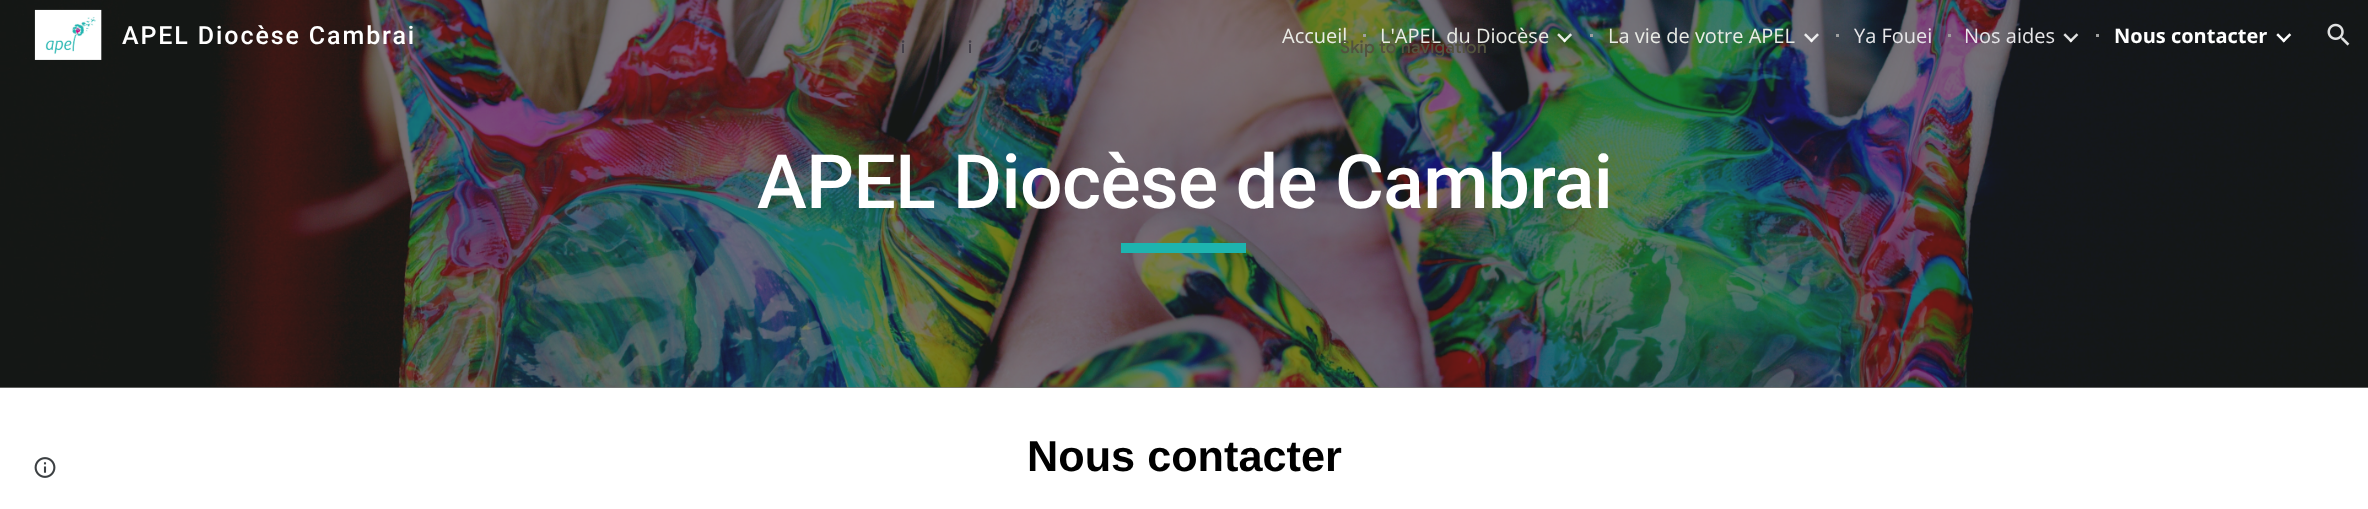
<!DOCTYPE html>
<meta charset="utf-8">
<style>body { margin: 0 } canvas { display: block }</style>
<canvas id="canvas" width="2368" height="509"></canvas>
<img id="img1" src="img_08.png" hidden>
<img id="img2" src="img_01.png" hidden>
<img id="img3" src="img_02.png" hidden>
<img id="img4" src="img_03.png" hidden>
<img id="img5" src="img_04.png" hidden>
<img id="img6" src="img_05.png" hidden>
<img id="img7" src="img_06.png" hidden>
<img id="img8" src="img_07.png" hidden>
<script>
window.onload = function () {
	const canvas = document.getElementById("canvas");
	const ctx = canvas.getContext("2d");
	ctx.miterLimit = 4;
	ctx.fontKerning = "normal";
	function txt(s, x, y) {
		ctx.fillText(s, x, y);
	}
	function fill(x, y, w, h) {
		ctx.fillRect(x, y, w, h);
	}
	function img(id, x, y, w, h) {
		ctx.drawImage(document.getElementById(id), x, y, w, h);
	}

	ctx.fillStyle = "#FFFFFF";
	fill(0, 0, 2368, 509);
	ctx.fillStyle = "#7A7A7A";
	fill(0, 387, 2368, 1);
	img("img1", 0, 0, 2368, 388);
	img("img2", 34, 9, 68, 51);
	ctx.fillStyle = "#9E9E9E";
	fill(1363, 34, 3, 3);
	img("img3", 1557, 33, 15, 10);
	fill(1590, 34, 3, 3);
	img("img4", 1804, 33, 15, 10);
	fill(1836, 34, 3, 3);
	fill(1948, 34, 3, 3);
	img("img5", 2063, 33, 16, 10);
	fill(2096, 34, 3, 3);
	img("img6", 2276, 33, 16, 10);
	img("img7", 2327, 23, 23, 23);
	img("img8", 34, 457, 22, 21);
	ctx.fillStyle = "#1DB4AF";
	fill(1121, 243, 125, 10);
	ctx.letterSpacing = "1.9px";
	ctx.font = "500 25px Roboto";
	ctx.fillStyle = "#FFFFFF";
	txt("APEL Diocèse Cambrai", 122, 44);
	ctx.letterSpacing = "0px";
	ctx.font = "20px Open Sans";
	ctx.fillStyle = "#EAECE6";
	txt("Accueil", 1282, 43);
	txt("L'APEL du Diocèse", 1380, 43);
	txt("La vie de votre APEL", 1608, 43);
	ctx.fillStyle = "#E7E6E9";
	txt("Ya Fouei", 1854, 43);
	txt("Nos aides", 1964, 43);
	ctx.font = "bold 20px Open Sans";
	ctx.fillStyle = "#FFFFFF";
	txt("Nous contacter", 2114, 43);
	ctx.letterSpacing = "-0.6px";
	ctx.font = "500 75px Roboto";
	txt("APEL Diocèse de Cambrai", 757, 208);
	ctx.letterSpacing = "0px";
	ctx.font = "bold 43.25px Liberation Sans";
	ctx.fillStyle = "#000000";
	txt("Nous contacter", 1027, 471);
	ctx.letterSpacing = "0.2px";
	ctx.font = "500 17.5px Google Sans";
	ctx.fillStyle = "#433F49";
	txt("i", 901, 53);
	txt("i", 968, 53);
	ctx.fillStyle = "#52523E";
	txt("Skip to navigation", 1340, 53);
};
</script>
